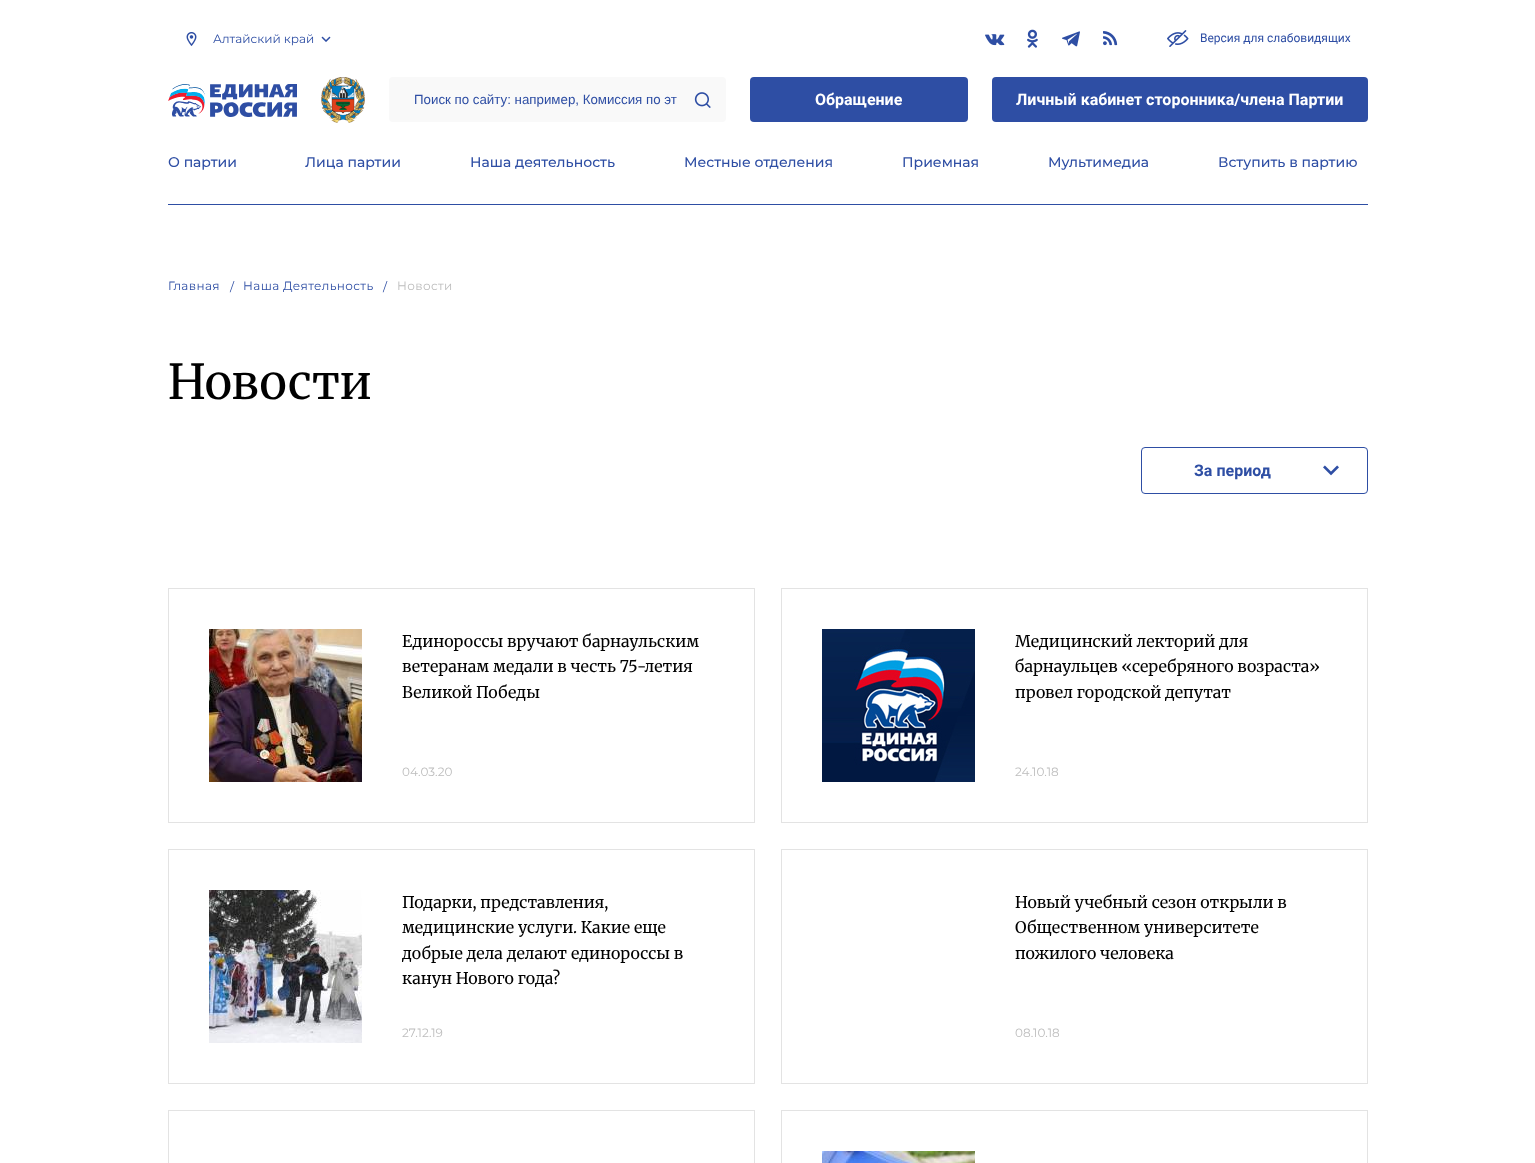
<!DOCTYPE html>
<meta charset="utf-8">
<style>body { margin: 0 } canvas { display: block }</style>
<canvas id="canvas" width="1535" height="1163"></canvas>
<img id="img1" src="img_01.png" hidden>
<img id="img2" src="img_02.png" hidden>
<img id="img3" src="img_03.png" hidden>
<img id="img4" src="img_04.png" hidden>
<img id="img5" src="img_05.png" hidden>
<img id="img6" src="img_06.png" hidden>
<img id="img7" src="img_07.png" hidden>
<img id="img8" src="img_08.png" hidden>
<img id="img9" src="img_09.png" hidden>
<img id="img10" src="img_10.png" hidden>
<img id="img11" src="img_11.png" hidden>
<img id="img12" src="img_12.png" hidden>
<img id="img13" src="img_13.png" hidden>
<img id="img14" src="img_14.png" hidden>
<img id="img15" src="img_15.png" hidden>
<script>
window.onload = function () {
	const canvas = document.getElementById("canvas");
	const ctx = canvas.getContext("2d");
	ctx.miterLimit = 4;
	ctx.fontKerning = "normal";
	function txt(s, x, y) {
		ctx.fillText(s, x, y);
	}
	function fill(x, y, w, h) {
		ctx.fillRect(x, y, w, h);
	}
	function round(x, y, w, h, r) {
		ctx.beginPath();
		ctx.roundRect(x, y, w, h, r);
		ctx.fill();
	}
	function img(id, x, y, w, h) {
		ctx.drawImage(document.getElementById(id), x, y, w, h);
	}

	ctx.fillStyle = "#FFFFFF";
	fill(0, 0, 1535, 1163);
	img("img1", 186, 32, 11, 14);
	img("img2", 321, 36, 10, 6);
	img("img3", 985, 34, 20, 12);
	img("img4", 1027, 29, 11, 19);
	img("img5", 1062, 31, 18, 16);
	img("img6", 1103, 31, 15, 15);
	img("img7", 1167, 30, 22, 17);
	img("img8", 168, 84, 129, 33);
	img("img9", 321, 77, 44, 46);
	ctx.fillStyle = "#F9F9F9";
	round(389, 77, 337, 45, 4);
	img("img10", 694, 92, 17, 16);
	ctx.fillStyle = "#2E4EA4";
	round(750, 77, 218, 45, 4);
	round(992, 77, 376, 45, 4);
	fill(168, 204, 1200, 1);
	ctx.beginPath();
	ctx.roundRect(1141.5, 447.5, 226, 46, 3.5);
	ctx.strokeStyle = "#2E4EA4";
	ctx.stroke();
	img("img11", 1323, 465, 16, 11);
	ctx.strokeStyle = "#E3E3E3";
	ctx.strokeRect(168.5, 588.5, 586, 234);
	img("img12", 209, 629, 153, 153);
	ctx.strokeRect(168.5, 849.5, 586, 234);
	img("img13", 209, 890, 153, 153);
	ctx.strokeRect(168.5, 1110.5, 586, 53);
	ctx.strokeRect(781.5, 588.5, 586, 234);
	img("img14", 822, 629, 153, 153);
	ctx.strokeRect(781.5, 849.5, 586, 234);
	ctx.strokeRect(781.5, 1110.5, 586, 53);
	img("img15", 822, 1151, 153, 12);
	ctx.font = "12px Montserrat";
	txt("Алтайский край", 213, 43);
	ctx.font = "12px Roboto";
	txt("Версия для слабовидящих", 1200, 42);
	ctx.font = "13.3px Liberation Sans";
	txt("Поиск по сайту: например, Комиссия по эт", 414, 104);
	ctx.font = "bold 16px Roboto";
	ctx.fillStyle = "#FFFFFF";
	txt("Обращение", 815, 105);
	txt("Личный кабинет сторонника/члена Партии", 1016, 105);
	ctx.font = "500 14px Montserrat";
	ctx.fillStyle = "#2E4EA4";
	txt("О партии", 168, 167);
	txt("Лица партии", 305, 167);
	txt("Наша деятельность", 470, 167);
	txt("Местные отделения", 684, 167);
	txt("Приемная", 902, 167);
	txt("Мультимедиа", 1048, 167);
	txt("Вступить в партию", 1218, 167);
	ctx.letterSpacing = "0.4px";
	ctx.font = "12px Montserrat";
	txt("Главная", 168, 290);
	txt("/", 230, 291);
	txt("Наша Деятельность", 243, 290);
	txt("/", 383, 291);
	ctx.fillStyle = "#BDBDBD";
	txt("Новости", 397, 290);
	ctx.letterSpacing = "0px";
	ctx.font = "48px Merriweather";
	ctx.fillStyle = "#000000";
	txt("Новости", 168, 399);
	ctx.font = "bold 16px Roboto";
	ctx.fillStyle = "#2E4EA4";
	txt("За период", 1194, 476);
	ctx.font = "16px 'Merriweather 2'";
	ctx.fillStyle = "#000000";
	txt("Единороссы вручают барнаульским", 402, 647);
	txt("ветеранам медали в честь 75-летия", 402, 672);
	txt("Великой Победы", 402, 698);
	ctx.font = "12px Montserrat";
	ctx.fillStyle = "#BDBDBD";
	txt("04.03.20", 402, 776);
	ctx.font = "16px 'Merriweather 2'";
	ctx.fillStyle = "#000000";
	txt("Подарки, представления,", 402, 908);
	txt("медицинские услуги. Какие еще", 402, 933);
	txt("добрые дела делают единороссы в", 402, 959);
	txt("канун Нового года?", 402, 984);
	ctx.font = "12px Montserrat";
	ctx.fillStyle = "#BDBDBD";
	txt("27.12.19", 402, 1037);
	ctx.font = "16px 'Merriweather 2'";
	ctx.fillStyle = "#000000";
	txt("Медицинский лекторий для", 1015, 647);
	txt("барнаульцев «серебряного возраста»", 1015, 672);
	txt("провел городской депутат", 1015, 698);
	ctx.font = "12px Montserrat";
	ctx.fillStyle = "#BDBDBD";
	txt("24.10.18", 1015, 776);
	ctx.font = "16px 'Merriweather 2'";
	ctx.fillStyle = "#000000";
	txt("Новый учебный сезон открыли в", 1015, 908);
	txt("Общественном университете", 1015, 933);
	txt("пожилого человека", 1015, 959);
	ctx.font = "12px Montserrat";
	ctx.fillStyle = "#BDBDBD";
	txt("08.10.18", 1015, 1037);
};
</script>
